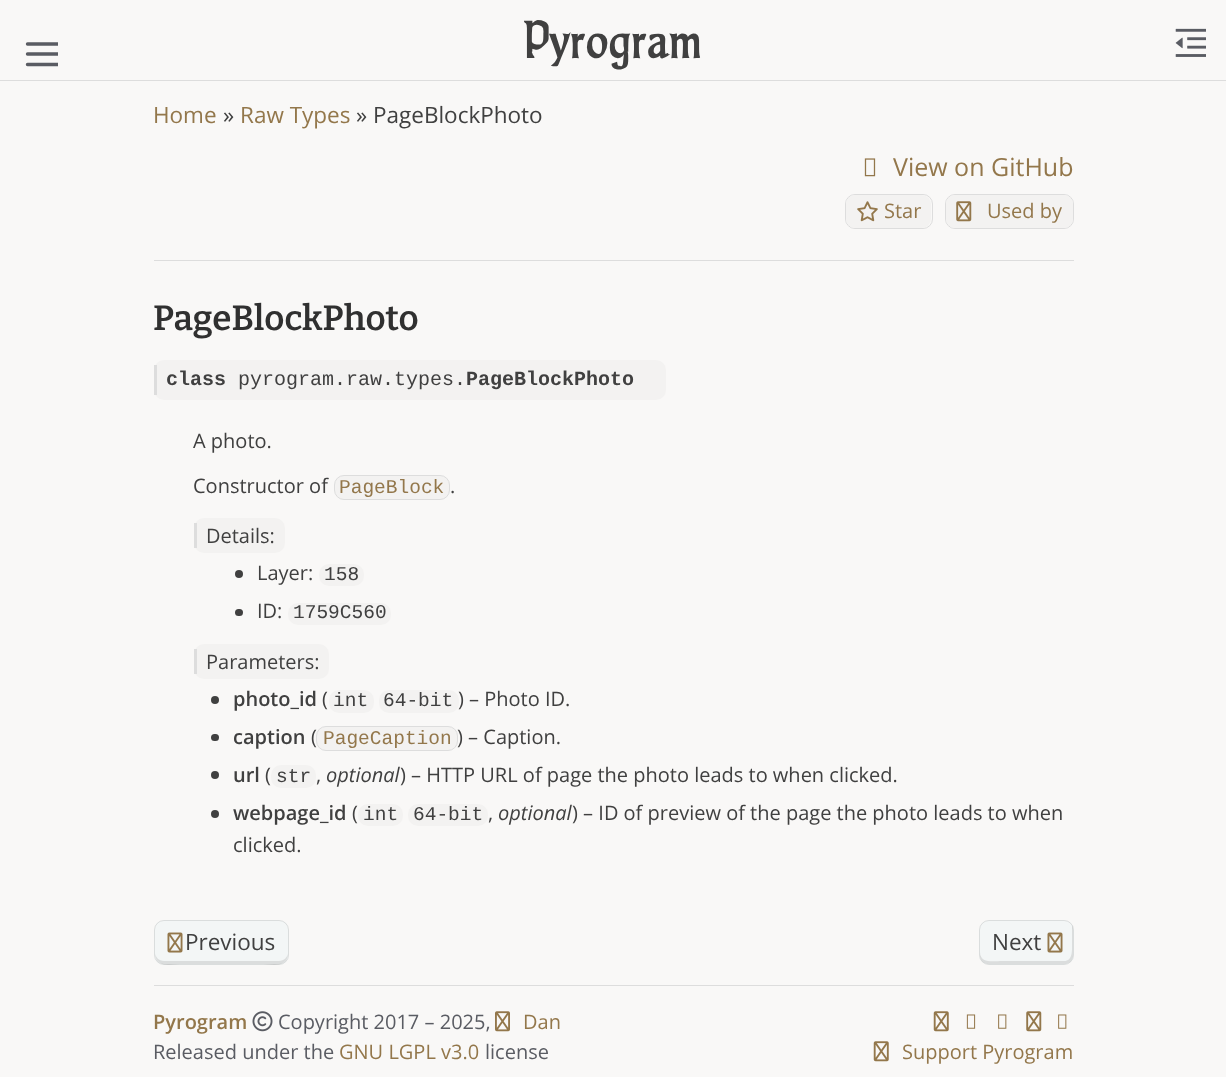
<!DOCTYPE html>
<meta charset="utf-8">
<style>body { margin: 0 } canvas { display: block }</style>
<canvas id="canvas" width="1226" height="1077"></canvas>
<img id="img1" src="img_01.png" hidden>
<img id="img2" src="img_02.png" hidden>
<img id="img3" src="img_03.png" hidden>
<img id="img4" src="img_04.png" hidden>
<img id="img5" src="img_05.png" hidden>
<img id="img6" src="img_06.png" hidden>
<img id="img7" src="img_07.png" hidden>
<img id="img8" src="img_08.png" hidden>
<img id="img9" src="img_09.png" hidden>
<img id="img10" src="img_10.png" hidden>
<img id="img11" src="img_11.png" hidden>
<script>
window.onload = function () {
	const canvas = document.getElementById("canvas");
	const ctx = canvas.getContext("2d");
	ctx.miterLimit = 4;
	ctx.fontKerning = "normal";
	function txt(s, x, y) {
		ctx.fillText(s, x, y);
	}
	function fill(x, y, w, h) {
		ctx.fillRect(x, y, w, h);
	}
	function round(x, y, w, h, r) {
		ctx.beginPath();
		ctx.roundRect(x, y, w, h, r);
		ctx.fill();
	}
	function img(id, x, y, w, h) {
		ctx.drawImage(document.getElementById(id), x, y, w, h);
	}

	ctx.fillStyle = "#F9F8F7";
	fill(0, 0, 1226, 1077);
	ctx.fillStyle = "#DDDDDD";
	fill(0, 80, 1226, 1);
	ctx.save();
	ctx.beginPath();
	ctx.rect(23, 34, 35, 35);
	ctx.clip();
	ctx.beginPath();
	ctx.moveTo(27.5, 54);
	ctx.lineTo(58, 54);
	ctx.moveTo(27.5, 44);
	ctx.lineTo(58, 44);
	ctx.moveTo(27.5, 64.5);
	ctx.lineTo(58, 64.5);
	ctx.strokeStyle = "#5A5C63";
	ctx.lineWidth = 3.4;
	ctx.lineCap = "round";
	ctx.lineJoin = "round";
	ctx.stroke();
	ctx.restore();
	img("img1", 1175, 28, 31, 29);
	img("img2", 864, 158, 12, 19);
	ctx.beginPath();
	ctx.roundRect(845.5, 194.5, 87, 34, 9.5);
	ctx.strokeStyle = "#DDDDDD";
	ctx.stroke();
	ctx.fillStyle = "#F3F2F1";
	round(846, 195, 85, 33, 9);
	img("img3", 857, 201, 21, 21);
	ctx.beginPath();
	ctx.roundRect(945.5, 194.5, 128, 34, 9.5);
	ctx.stroke();
	round(946, 195, 127, 33, 9);
	img("img4", 956, 201, 16, 21);
	ctx.fillStyle = "#DDDDDD";
	fill(154, 260, 920, 1);
	ctx.fillStyle = "#F3F2F1";
	round(154, 360, 512, 40, 10);
	ctx.fillStyle = "#DDDDDD";
	fill(154, 365, 3, 30);
	ctx.fillStyle = "#F3F2F1";
	ctx.beginPath();
	ctx.roundRect(334.5, 475.5, 115, 24, 9.5);
	ctx.fill();
	ctx.stroke();
	round(194, 518, 91, 35, 10);
	ctx.fillStyle = "#DDDDDD";
	fill(194, 523, 3, 25);
	ctx.fillStyle = "#404040";
	ctx.beginPath();
	ctx.arc(239, 574, 4, 0, Math.PI * 2);
	ctx.fill();
	ctx.fillStyle = "#F3F2F1";
	round(319, 564, 45, 22, 10);
	ctx.fillStyle = "#404040";
	round(235, 609, 8, 7, 3.5);
	ctx.fillStyle = "#F3F2F1";
	round(288, 603, 103, 22, 10);
	round(194, 644, 135, 35, 10);
	ctx.fillStyle = "#DDDDDD";
	fill(194, 649, 3, 25);
	ctx.fillStyle = "#404040";
	ctx.beginPath();
	ctx.arc(215, 700, 4, 0, Math.PI * 2);
	ctx.fill();
	ctx.fillStyle = "#F3F2F1";
	round(329, 690, 45, 23, 10);
	round(379, 690, 80, 23, 10);
	ctx.fillStyle = "#404040";
	round(211, 734, 8, 7, 3.5);
	ctx.fillStyle = "#F3F2F1";
	ctx.beginPath();
	ctx.roundRect(316.5, 726.5, 141, 24, 9.5);
	ctx.fill();
	ctx.stroke();
	ctx.fillStyle = "#404040";
	ctx.beginPath();
	ctx.arc(215, 775, 4, 0, Math.PI * 2);
	ctx.fill();
	ctx.fillStyle = "#F3F2F1";
	round(271, 765, 45, 23, 10);
	ctx.fillStyle = "#404040";
	ctx.beginPath();
	ctx.arc(215, 814, 4, 0, Math.PI * 2);
	ctx.fill();
	ctx.fillStyle = "#F3F2F1";
	round(358, 804, 45, 22, 10);
	round(408, 804, 80, 22, 10);
	ctx.fillStyle = "#F3F6F6";
	round(154, 920, 135, 45, 10);
	ctx.fillStyle = "#DBDDDD";
	ctx.beginPath();
	ctx.moveTo(155, 952);
	ctx.bezierCurveTo(155, 969, 170, 964, 183, 964);
	ctx.lineTo(260, 964);
	ctx.bezierCurveTo(273, 964, 288, 969, 288, 952);
	ctx.bezierCurveTo(288, 957, 284, 961, 279, 961);
	ctx.lineTo(164, 961);
	ctx.bezierCurveTo(159, 961, 155, 957, 155, 952);
	ctx.closePath();
	ctx.fill();
	ctx.beginPath();
	ctx.roundRect(154.5, 920.5, 134, 44, 9.5);
	ctx.strokeStyle = "rgba(0, 0, 0, 0.1)";
	ctx.stroke();
	img("img5", 167, 932, 16, 21);
	ctx.fillStyle = "#F3F6F6";
	round(979, 920, 95, 45, 10);
	ctx.fillStyle = "#DBDDDD";
	ctx.beginPath();
	ctx.moveTo(980, 952);
	ctx.lineTo(980, 955);
	ctx.bezierCurveTo(980, 960, 984, 964, 989, 964);
	ctx.lineTo(1064, 964);
	ctx.bezierCurveTo(1069, 964, 1073, 960, 1073, 955);
	ctx.lineTo(1073, 930);
	ctx.bezierCurveTo(1073, 928, 1073, 927, 1072, 925);
	ctx.lineTo(1072, 944);
	ctx.bezierCurveTo(1072, 950, 1073, 961, 1064, 961);
	ctx.lineTo(1002, 961);
	ctx.bezierCurveTo(994, 961, 980, 964, 980, 952);
	ctx.closePath();
	ctx.fill();
	ctx.beginPath();
	ctx.roundRect(979.5, 920.5, 94, 44, 9.5);
	ctx.stroke();
	img("img5", 1047, 932, 16, 21);
	ctx.fillStyle = "#DDDDDD";
	fill(154, 985, 920, 1);
	img("img6", 252, 1011, 21, 21);
	img("img7", 495, 1011, 15, 21);
	img("img8", 933, 1011, 16, 21);
	img("img9", 966, 1014, 10, 15);
	img("img10", 998, 1014, 9, 15);
	img("img11", 1026, 1011, 16, 21);
	img("img10", 1058, 1014, 9, 15);
	img("img8", 873, 1041, 16, 21);
	ctx.letterSpacing = "2px";
	ctx.font = "bold 47.5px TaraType";
	ctx.fillStyle = "#404040";
	txt("Pyrogram", 523, 58);
	ctx.letterSpacing = "0px";
	ctx.font = "22.5px Open Sans";
	ctx.fillStyle = "#93774B";
	txt("Home", 153, 123);
	ctx.fillStyle = "#404040";
	txt("»", 223, 123);
	ctx.fillStyle = "#93774B";
	txt("Raw Types", 240, 123);
	ctx.fillStyle = "#404040";
	txt("» PageBlockPhoto", 356, 123);
	ctx.font = "25px Open Sans";
	ctx.fillStyle = "#93774B";
	txt("View on GitHub", 893, 176);
	ctx.font = "20px Open Sans";
	txt("Star", 884, 218);
	txt("Used by", 987, 218);
	ctx.font = "600 35px Bitter";
	ctx.fillStyle = "#303030";
	txt("PageBlockPhoto", 153, 330);
	ctx.font = "bold 20px Liberation Mono";
	ctx.fillStyle = "#404040";
	txt("class", 166, 385);
	ctx.font = "20px Liberation Mono";
	txt("pyrogram.raw.types.", 238, 385);
	ctx.font = "bold 20px Liberation Mono";
	txt("PageBlockPhoto", 466, 385);
	ctx.font = "20px Open Sans";
	txt("A photo.", 193, 448);
	txt("Constructor of", 193, 493);
	ctx.font = "19.5px Liberation Mono";
	ctx.fillStyle = "#93774B";
	txt("PageBlock", 339, 493);
	ctx.font = "20px Open Sans";
	ctx.fillStyle = "#404040";
	txt(".", 450, 493);
	txt("Details:", 206, 543);
	txt("Layer:", 257, 580);
	ctx.font = "19.5px Liberation Mono";
	txt("158", 324, 580);
	ctx.font = "20px Open Sans";
	txt("ID:", 257, 618);
	ctx.font = "19.5px Liberation Mono";
	txt("1759C560", 293, 618);
	ctx.font = "20px Open Sans";
	txt("Parameters:", 206, 669);
	ctx.font = "600 20px Open Sans";
	txt("photo_id", 233, 706);
	ctx.font = "20px Open Sans";
	txt("(", 322, 706);
	ctx.font = "19.5px Liberation Mono";
	txt("int", 333, 706);
	txt("64-bit", 383, 706);
	ctx.font = "20px Open Sans";
	txt(") – Photo ID.", 458, 706);
	ctx.font = "600 20px Open Sans";
	txt("caption", 233, 744);
	ctx.font = "20px Open Sans";
	txt("(", 311, 744);
	ctx.font = "19.5px Liberation Mono";
	ctx.fillStyle = "#93774B";
	txt("PageCaption", 323, 744);
	ctx.font = "20px Open Sans";
	ctx.fillStyle = "#404040";
	txt(") – Caption.", 457, 744);
	ctx.font = "600 20px Open Sans";
	txt("url", 233, 782);
	ctx.font = "20px Open Sans";
	txt("(", 265, 782);
	ctx.font = "19.5px Liberation Mono";
	txt("str", 276, 782);
	ctx.font = "20px Open Sans";
	txt(",", 316, 782);
	ctx.font = "italic 20px Open Sans";
	txt("optional", 326, 782);
	ctx.font = "20px Open Sans";
	txt(") – HTTP URL of page the photo leads to when clicked.", 400, 782);
	ctx.font = "600 20px Open Sans";
	txt("webpage_id", 233, 820);
	ctx.font = "20px Open Sans";
	txt("(", 352, 820);
	ctx.font = "19.5px Liberation Mono";
	txt("int", 363, 820);
	txt("64-bit", 413, 820);
	ctx.font = "20px Open Sans";
	txt(",", 488, 820);
	ctx.font = "italic 20px Open Sans";
	txt("optional", 498, 820);
	ctx.font = "20px Open Sans";
	txt(") – ID of preview of the page the photo leads to when", 572, 820);
	txt("clicked.", 233, 852);
	ctx.font = "22.5px Open Sans";
	txt("Previous", 185, 950);
	txt("Next", 992, 950);
	ctx.font = "600 20px Open Sans";
	ctx.fillStyle = "#93774B";
	txt("Pyrogram", 153, 1029);
	ctx.font = "20px Open Sans";
	ctx.fillStyle = "#5A5C63";
	txt("Copyright 2017 – 2025,", 278, 1029);
	ctx.fillStyle = "#93774B";
	txt("Dan", 523, 1029);
	ctx.fillStyle = "#5A5C63";
	txt("Released under the", 153, 1059);
	ctx.fillStyle = "#93774B";
	txt("GNU LGPL v3.0", 339, 1059);
	ctx.fillStyle = "#5A5C63";
	txt("license", 485, 1059);
	ctx.fillStyle = "#93774B";
	txt("Support Pyrogram", 902, 1059);
};
</script>
